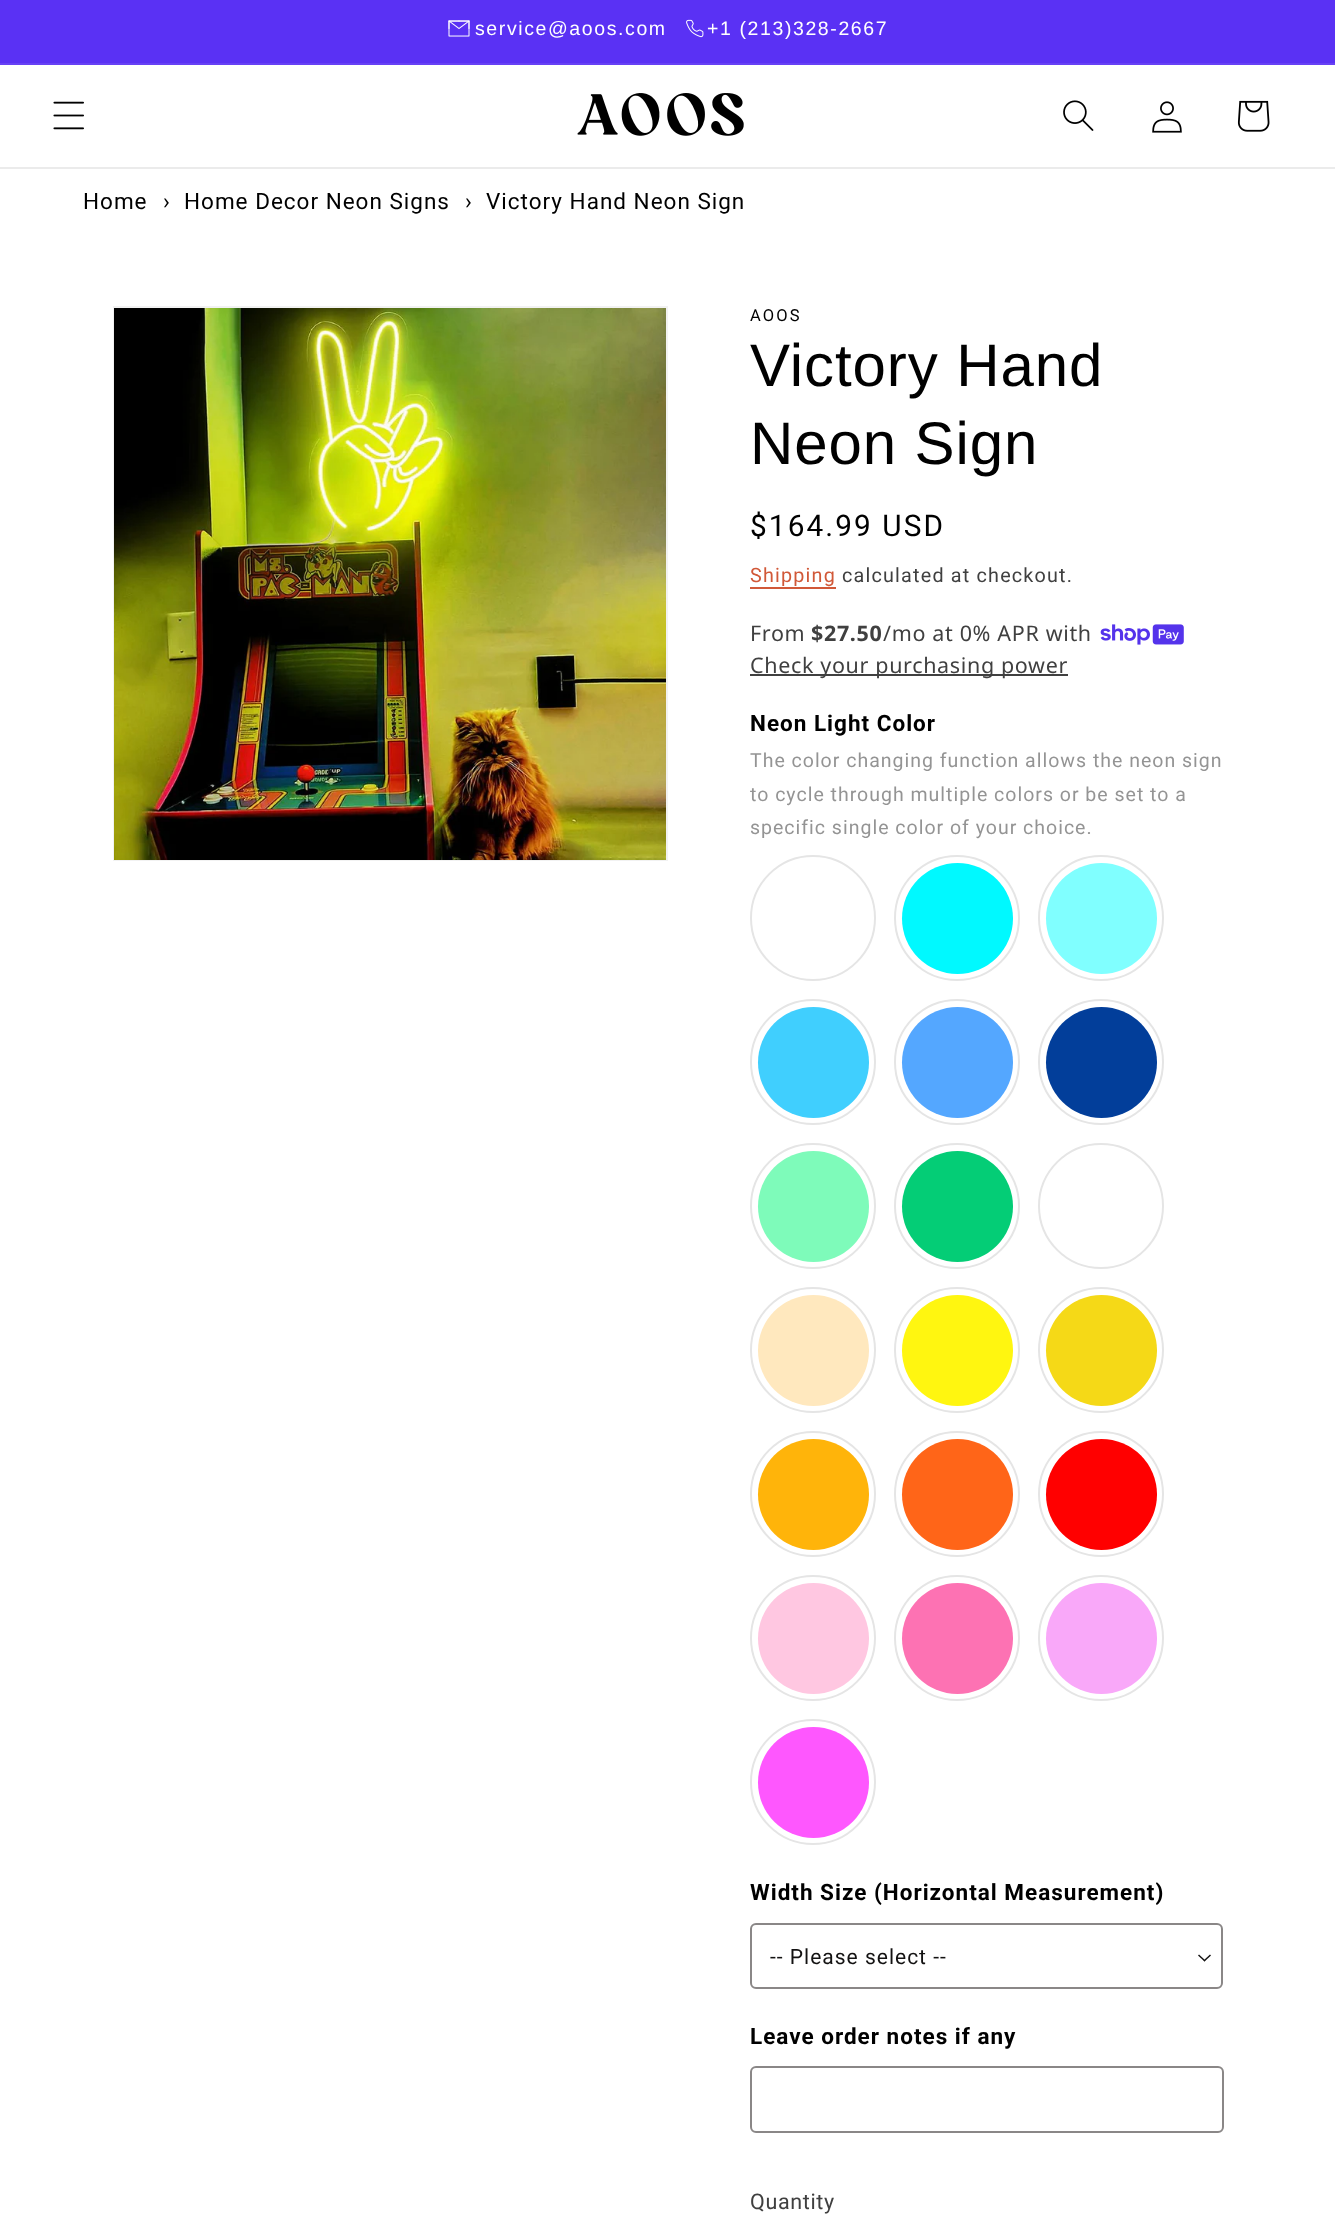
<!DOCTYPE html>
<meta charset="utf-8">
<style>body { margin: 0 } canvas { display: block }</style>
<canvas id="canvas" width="1335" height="2226"></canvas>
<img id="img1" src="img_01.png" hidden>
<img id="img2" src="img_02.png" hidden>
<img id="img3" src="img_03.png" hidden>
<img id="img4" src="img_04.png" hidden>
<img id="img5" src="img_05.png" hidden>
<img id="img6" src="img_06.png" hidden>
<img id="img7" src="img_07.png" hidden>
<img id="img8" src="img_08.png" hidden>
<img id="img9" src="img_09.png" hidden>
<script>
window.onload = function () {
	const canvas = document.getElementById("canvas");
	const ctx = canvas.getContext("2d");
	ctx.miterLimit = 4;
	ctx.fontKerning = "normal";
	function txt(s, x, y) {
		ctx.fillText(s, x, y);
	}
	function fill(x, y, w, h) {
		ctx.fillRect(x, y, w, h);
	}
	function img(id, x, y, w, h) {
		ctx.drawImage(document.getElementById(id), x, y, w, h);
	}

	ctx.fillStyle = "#FFFFFF";
	fill(0, 0, 1335, 2226);
	ctx.fillStyle = "#5A31F4";
	fill(0, 0, 1335, 63);
	ctx.fillStyle = "#6741F5";
	fill(0, 63, 1335, 2);
	img("img1", 448, 20, 22, 17);
	img("img2", 686, 19, 18, 19);
	ctx.fillStyle = "#EBEBEB";
	fill(0, 167, 1335, 2);
	img("img3", 53, 101, 31, 29);
	img("img4", 577, 93, 167, 43);
	img("img5", 1063, 100, 31, 31);
	img("img6", 1152, 101, 30, 32);
	img("img7", 1237, 100, 33, 32);
	ctx.strokeStyle = "#F2F2F2";
	ctx.lineWidth = 2;
	ctx.strokeRect(114, 307, 553, 553);
	img("img8", 114, 308, 552, 552);
	ctx.fillStyle = "#D15838";
	fill(750, 587, 86, 2);
	img("img9", 1100, 624, 84, 21);
	ctx.fillStyle = "#404040";
	fill(750, 674, 318, 2);
	ctx.beginPath();
	ctx.arc(813, 918, 62, 0, Math.PI * 2);
	ctx.strokeStyle = "#E5E5E5";
	ctx.stroke();
	ctx.beginPath();
	ctx.arc(957, 918, 62, 0, Math.PI * 2);
	ctx.stroke();
	ctx.fillStyle = "#00F9FF";
	ctx.beginPath();
	ctx.arc(957.5, 918.5, 55.5, 0, Math.PI * 2);
	ctx.fill();
	ctx.beginPath();
	ctx.arc(1101, 918, 62, 0, Math.PI * 2);
	ctx.stroke();
	ctx.fillStyle = "#80FFFF";
	ctx.beginPath();
	ctx.arc(1101.5, 918.5, 55.5, 0, Math.PI * 2);
	ctx.fill();
	ctx.beginPath();
	ctx.arc(813, 1062, 62, 0, Math.PI * 2);
	ctx.stroke();
	ctx.fillStyle = "#40CFFE";
	ctx.beginPath();
	ctx.arc(813.5, 1062.5, 55.5, 0, Math.PI * 2);
	ctx.fill();
	ctx.beginPath();
	ctx.arc(957, 1062, 62, 0, Math.PI * 2);
	ctx.stroke();
	ctx.fillStyle = "#54A7FF";
	ctx.beginPath();
	ctx.arc(957.5, 1062.5, 55.5, 0, Math.PI * 2);
	ctx.fill();
	ctx.beginPath();
	ctx.arc(1101, 1062, 62, 0, Math.PI * 2);
	ctx.stroke();
	ctx.fillStyle = "#023E9A";
	ctx.beginPath();
	ctx.arc(1101.5, 1062.5, 55.5, 0, Math.PI * 2);
	ctx.fill();
	ctx.beginPath();
	ctx.arc(813, 1206, 62, 0, Math.PI * 2);
	ctx.stroke();
	ctx.fillStyle = "#7EFBBA";
	ctx.beginPath();
	ctx.arc(813.5, 1206.5, 55.5, 0, Math.PI * 2);
	ctx.fill();
	ctx.beginPath();
	ctx.arc(957, 1206, 62, 0, Math.PI * 2);
	ctx.stroke();
	ctx.fillStyle = "#04CD76";
	ctx.beginPath();
	ctx.arc(957.5, 1206.5, 55.5, 0, Math.PI * 2);
	ctx.fill();
	ctx.beginPath();
	ctx.arc(1101, 1206, 62, 0, Math.PI * 2);
	ctx.stroke();
	ctx.beginPath();
	ctx.arc(813, 1350, 62, 0, Math.PI * 2);
	ctx.stroke();
	ctx.fillStyle = "#FFE8BE";
	ctx.beginPath();
	ctx.arc(813.5, 1350.5, 55.5, 0, Math.PI * 2);
	ctx.fill();
	ctx.beginPath();
	ctx.arc(957, 1350, 62, 0, Math.PI * 2);
	ctx.stroke();
	ctx.fillStyle = "#FFF610";
	ctx.beginPath();
	ctx.arc(957.5, 1350.5, 55.5, 0, Math.PI * 2);
	ctx.fill();
	ctx.beginPath();
	ctx.arc(1101, 1350, 62, 0, Math.PI * 2);
	ctx.stroke();
	ctx.fillStyle = "#F5D917";
	ctx.beginPath();
	ctx.arc(1101.5, 1350.5, 55.5, 0, Math.PI * 2);
	ctx.fill();
	ctx.beginPath();
	ctx.arc(813, 1494, 62, 0, Math.PI * 2);
	ctx.stroke();
	ctx.fillStyle = "#FFB40A";
	ctx.beginPath();
	ctx.arc(813.5, 1494.5, 55.5, 0, Math.PI * 2);
	ctx.fill();
	ctx.beginPath();
	ctx.arc(957, 1494, 62, 0, Math.PI * 2);
	ctx.stroke();
	ctx.fillStyle = "#FF6518";
	ctx.beginPath();
	ctx.arc(957.5, 1494.5, 55.5, 0, Math.PI * 2);
	ctx.fill();
	ctx.beginPath();
	ctx.arc(1101, 1494, 62, 0, Math.PI * 2);
	ctx.stroke();
	ctx.fillStyle = "#FF0000";
	ctx.beginPath();
	ctx.arc(1101.5, 1494.5, 55.5, 0, Math.PI * 2);
	ctx.fill();
	ctx.beginPath();
	ctx.arc(813, 1638, 62, 0, Math.PI * 2);
	ctx.stroke();
	ctx.fillStyle = "#FFC7E1";
	ctx.beginPath();
	ctx.arc(813.5, 1638.5, 55.5, 0, Math.PI * 2);
	ctx.fill();
	ctx.beginPath();
	ctx.arc(957, 1638, 62, 0, Math.PI * 2);
	ctx.stroke();
	ctx.fillStyle = "#FD72B3";
	ctx.beginPath();
	ctx.arc(957.5, 1638.5, 55.5, 0, Math.PI * 2);
	ctx.fill();
	ctx.beginPath();
	ctx.arc(1101, 1638, 62, 0, Math.PI * 2);
	ctx.stroke();
	ctx.fillStyle = "#F9A8F9";
	ctx.beginPath();
	ctx.arc(1101.5, 1638.5, 55.5, 0, Math.PI * 2);
	ctx.fill();
	ctx.beginPath();
	ctx.arc(813, 1782, 62, 0, Math.PI * 2);
	ctx.stroke();
	ctx.fillStyle = "#FE57FE";
	ctx.beginPath();
	ctx.arc(813.5, 1782.5, 55.5, 0, Math.PI * 2);
	ctx.fill();
	ctx.beginPath();
	ctx.roundRect(751, 1924, 471, 64, 5);
	ctx.strokeStyle = "#8A8787";
	ctx.stroke();
	ctx.fillStyle = "#131212";
	ctx.beginPath();
	ctx.moveTo(1210, 1954.5);
	ctx.lineTo(1211, 1955.5);
	ctx.lineTo(1204.5, 1961.5);
	ctx.lineTo(1203.5, 1960.5);
	ctx.closePath();
	ctx.fill();
	ctx.beginPath();
	ctx.moveTo(1199, 1954.5);
	ctx.lineTo(1205.5, 1960.5);
	ctx.lineTo(1204.5, 1961.5);
	ctx.lineTo(1198, 1955.5);
	ctx.closePath();
	ctx.fill();
	ctx.beginPath();
	ctx.roundRect(751, 2067, 472, 65, 5);
	ctx.stroke();
	ctx.letterSpacing = "1.6px";
	ctx.font = "19.5px Liberation Sans";
	ctx.fillStyle = "#FFFFFF";
	txt("service@aoos.com", 475, 35);
	txt("+1 (213)328-2667", 707, 35);
	ctx.letterSpacing = "1px";
	ctx.font = "22.5px Roboto";
	ctx.fillStyle = "#000000";
	txt("Home", 83, 209);
	txt("›", 163, 209);
	txt("Home Decor Neon Signs", 184, 209);
	txt("›", 465, 209);
	txt("Victory Hand Neon Sign", 486, 209);
	ctx.letterSpacing = "2.1px";
	ctx.font = "16.5px Roboto";
	txt("AOOS", 750, 321);
	ctx.letterSpacing = "0.9px";
	ctx.font = "60px Liberation Sans";
	txt("Victory Hand", 750, 386);
	txt("Neon Sign", 750, 464);
	ctx.letterSpacing = "2.1px";
	ctx.font = "29.75px Roboto";
	txt("$164.99 USD", 750, 536);
	ctx.letterSpacing = "1.2px";
	ctx.font = "19.75px Roboto";
	ctx.fillStyle = "#D15838";
	txt("Shipping", 750, 582);
	ctx.fillStyle = "#404040";
	txt("calculated at checkout.", 842, 582);
	ctx.letterSpacing = "0.65px";
	ctx.font = "21.5px Noto Sans";
	txt("From", 750, 641);
	ctx.font = "bold 21.5px Noto Sans";
	txt("$27.50", 811, 641);
	ctx.font = "21.5px Noto Sans";
	txt("/mo at 0% APR with", 883, 641);
	txt("Check your purchasing power", 750, 673);
	ctx.letterSpacing = "1px";
	ctx.font = "bold 22.5px Roboto";
	ctx.fillStyle = "#000000";
	txt("Neon Light Color", 750, 731);
	ctx.font = "19.5px Roboto";
	ctx.fillStyle = "#949494";
	txt("The color changing function allows the neon sign", 750, 767);
	txt("to cycle through multiple colors or be set to a", 750, 801);
	txt("specific single color of your choice.", 750, 834);
	ctx.font = "bold 22.5px Roboto";
	ctx.fillStyle = "#000000";
	txt("Width Size (Horizontal Measurement)", 750, 1900);
	ctx.font = "21px Roboto";
	ctx.fillStyle = "#131212";
	txt("-- Please select --", 770, 1964);
	ctx.font = "bold 22.5px Roboto";
	ctx.fillStyle = "#000000";
	txt("Leave order notes if any", 750, 2044);
	ctx.letterSpacing = "0.65px";
	ctx.font = "21.5px Roboto";
	ctx.fillStyle = "#404040";
	txt("Quantity", 750, 2209);
};
</script>
